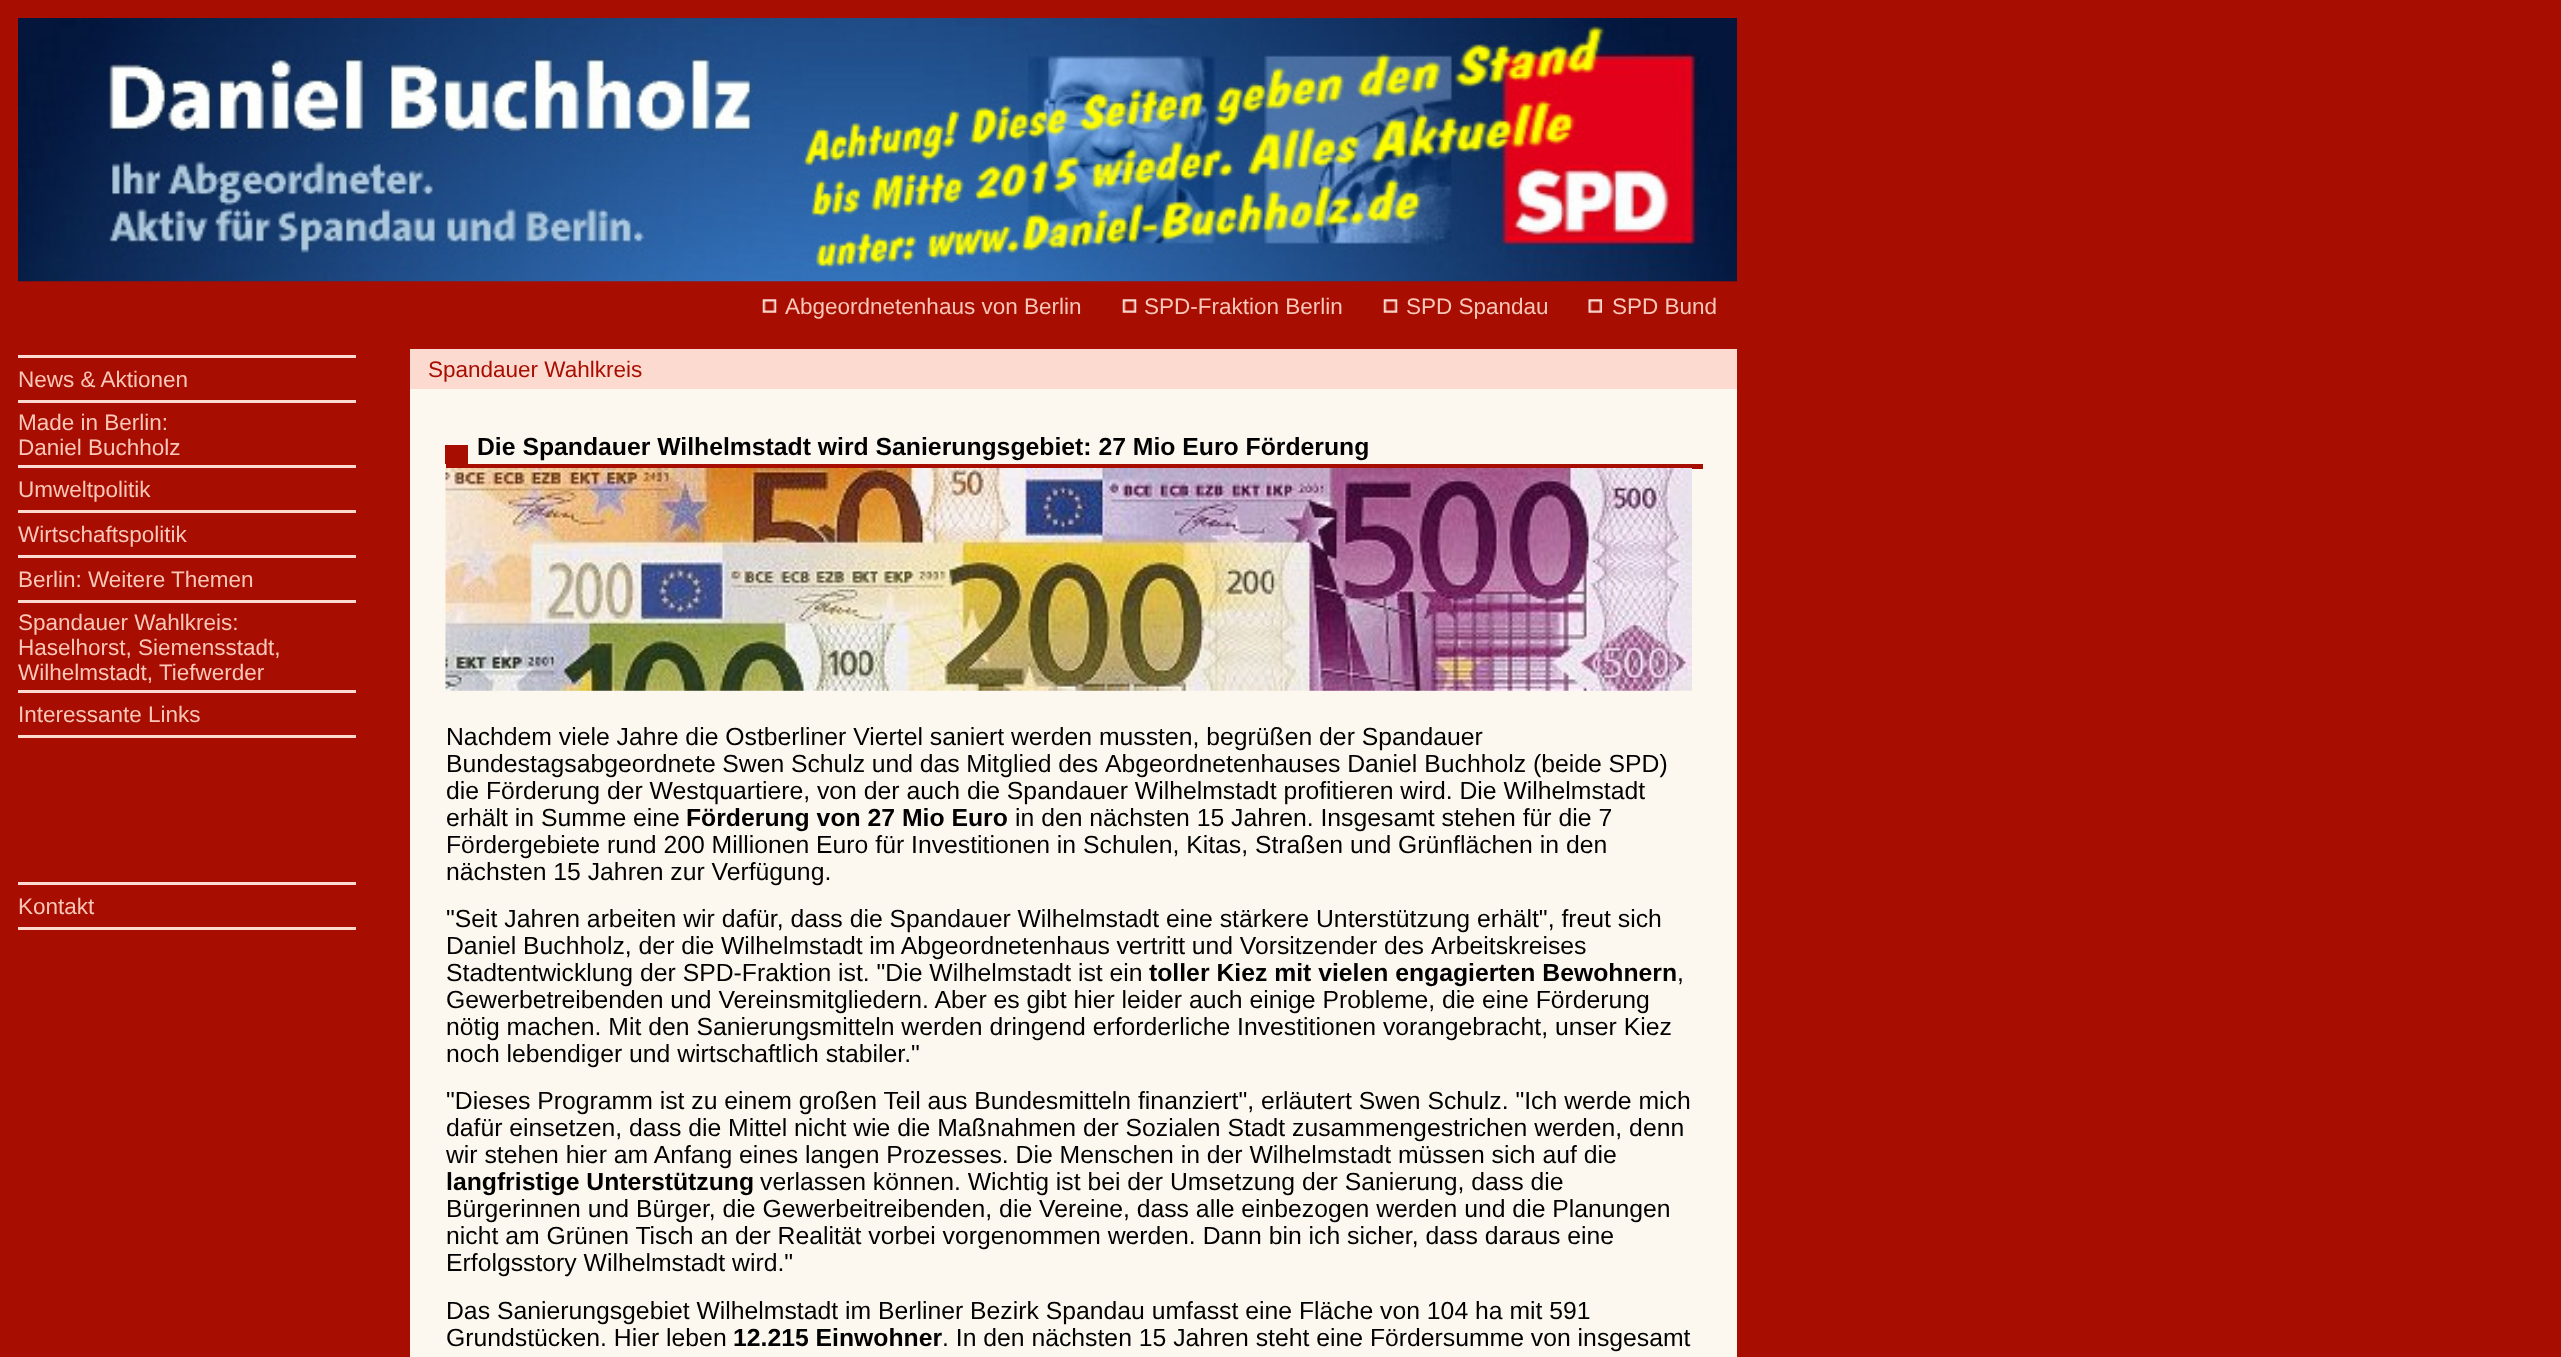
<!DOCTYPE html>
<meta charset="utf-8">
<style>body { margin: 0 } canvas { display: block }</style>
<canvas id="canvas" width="2561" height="1357"></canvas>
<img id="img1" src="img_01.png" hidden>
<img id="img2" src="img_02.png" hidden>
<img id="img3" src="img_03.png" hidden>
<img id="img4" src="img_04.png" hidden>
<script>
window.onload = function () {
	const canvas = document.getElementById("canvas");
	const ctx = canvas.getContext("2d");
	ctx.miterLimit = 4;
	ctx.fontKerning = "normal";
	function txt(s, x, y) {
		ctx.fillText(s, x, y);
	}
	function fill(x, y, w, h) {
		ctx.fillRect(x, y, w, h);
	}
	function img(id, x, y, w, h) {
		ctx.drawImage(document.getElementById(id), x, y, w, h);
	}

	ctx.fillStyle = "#A70D01";
	fill(0, 0, 2561, 1357);
	img("img1", 18, 18, 1719, 264);
	img("img2", 762, 299, 15, 14);
	img("img2", 1122, 299, 15, 14);
	img("img2", 1383, 299, 15, 14);
	img("img3", 1588, 299, 14, 14);
	ctx.fillStyle = "#FCDAD0";
	fill(18, 355, 338, 3);
	fill(18, 400, 338, 3);
	fill(18, 465, 338, 3);
	fill(18, 510, 338, 3);
	fill(18, 555, 338, 3);
	fill(18, 600, 338, 3);
	fill(18, 690, 338, 3);
	fill(18, 735, 338, 3);
	fill(18, 882, 338, 3);
	fill(18, 927, 338, 3);
	ctx.fillStyle = "#FDF8EF";
	fill(410, 389, 1327, 968);
	ctx.fillStyle = "#FCDAD0";
	fill(410, 349, 1327, 40);
	ctx.fillStyle = "#A70D01";
	fill(445, 445, 23, 19);
	fill(446, 464, 1257, 5);
	img("img4", 445, 468, 1247, 223);
	ctx.font = "22.5px Liberation Sans";
	ctx.fillStyle = "#FBC7B8";
	txt("Abgeordnetenhaus von Berlin", 785, 314);
	txt("SPD-Fraktion Berlin", 1144, 314);
	txt("SPD Spandau", 1406, 314);
	txt("SPD Bund", 1612, 314);
	txt("News & Aktionen", 18, 387);
	txt("Made in Berlin:", 18, 430);
	txt("Daniel Buchholz", 18, 455);
	txt("Umweltpolitik", 18, 497);
	txt("Wirtschaftspolitik", 18, 542);
	txt("Berlin: Weitere Themen", 18, 587);
	txt("Spandauer Wahlkreis:", 18, 630);
	txt("Haselhorst, Siemensstadt,", 18, 655);
	txt("Wilhelmstadt, Tiefwerder", 18, 680);
	txt("Interessante Links", 18, 722);
	txt("Kontakt", 18, 914);
	ctx.fillStyle = "#A70D01";
	txt("Spandauer Wahlkreis", 428, 377);
	ctx.font = "bold 24.75px Liberation Sans";
	ctx.fillStyle = "#000000";
	txt("Die Spandauer Wilhelmstadt wird Sanierungsgebiet: 27 Mio Euro Förderung", 477, 455);
	ctx.font = "24.75px Liberation Sans";
	txt("Nachdem viele Jahre die Ostberliner Viertel saniert werden mussten, begrüßen der Spandauer", 446, 745);
	ctx.wordSpacing = "-0.25px";
	txt("Bundestagsabgeordnete Swen Schulz und das Mitglied des", 446, 772);
	ctx.wordSpacing = "0px";
	txt("Abgeordnetenhauses Daniel Buchholz (beide SPD)", 1105, 772);
	txt("die Förderung der Westquartiere, von der auch die Spandauer Wilhelmstadt profitieren wird. Die Wilhelmstadt", 446, 799);
	txt("erhält in Summe eine", 446, 826);
	ctx.font = "bold 24.75px Liberation Sans";
	txt("Förderung von 27 Mio Euro", 686, 826);
	ctx.font = "24.75px Liberation Sans";
	txt("in den nächsten 15 Jahren. Insgesamt stehen für die 7", 1015, 826);
	txt("Fördergebiete rund 200 Millionen Euro für Investitionen in Schulen, Kitas, Straßen und Grünflächen in den", 446, 853);
	txt("nächsten 15 Jahren zur Verfügung.", 446, 880);
	txt("\"Seit Jahren arbeiten wir dafür, dass die Spandauer Wilhelmstadt eine stärkere Unterstützung erhält\", freut sich", 446, 927);
	txt("Daniel Buchholz, der die", 446, 954);
	ctx.wordSpacing = "-0.25px";
	txt("Wilhelmstadt im Abgeordnetenhaus vertritt und Vorsitzender des", 721, 954);
	ctx.wordSpacing = "0px";
	txt("Arbeitskreises", 1431, 954);
	txt("Stadtentwicklung der SPD-Fraktion ist. \"Die Wilhelmstadt ist ein", 446, 981);
	ctx.font = "bold 24.75px Liberation Sans";
	txt("toller Kiez mit vielen engagierten Bewohnern", 1149, 981);
	ctx.font = "24.75px Liberation Sans";
	txt(",", 1677, 981);
	txt("Gewerbetreibenden und Vereinsmitgliedern. Aber es gibt hier leider auch einige Probleme, die eine Förderung", 446, 1008);
	txt("nötig machen. Mit den Sanierungsmitteln werden dringend erforderliche Investitionen vorangebracht, unser Kiez", 446, 1035);
	txt("noch lebendiger und wirtschaftlich stabiler.\"", 446, 1062);
	txt("\"Dieses Programm ist zu einem großen Teil aus Bundesmitteln finanziert\", erläutert Swen Schulz. \"Ich werde mich", 446, 1109);
	txt("dafür einsetzen, dass die Mittel nicht wie die Maßnahmen der Sozialen Stadt zusammengestrichen werden, denn", 446, 1136);
	txt("wir stehen hier am Anfang eines langen Prozesses. Die Menschen in der Wilhelmstadt müssen sich auf die", 446, 1163);
	ctx.font = "bold 24.75px Liberation Sans";
	txt("langfristige Unterstützung", 446, 1190);
	ctx.font = "24.75px Liberation Sans";
	txt("verlassen können. Wichtig ist bei der Umsetzung der Sanierung, dass die", 760, 1190);
	txt("Bürgerinnen und Bürger, die Gewerbeitreibenden, die Vereine, dass alle einbezogen werden und die Planungen", 446, 1217);
	txt("nicht am Grünen Tisch an der Realität vorbei vorgenommen werden. Dann bin ich sicher, dass daraus eine", 446, 1244);
	txt("Erfolgsstory Wilhelmstadt wird.\"", 446, 1271);
	txt("Das Sanierungsgebiet Wilhelmstadt im Berliner Bezirk Spandau umfasst eine Fläche von 104 ha mit 591", 446, 1319);
	txt("Grundstücken. Hier leben", 446, 1346);
	ctx.font = "bold 24.75px Liberation Sans";
	txt("12.215 Einwohner", 733, 1346);
	ctx.font = "24.75px Liberation Sans";
	txt(". In den nächsten 15 Jahren steht eine Fördersumme von insgesamt", 942, 1346);
};
</script>
